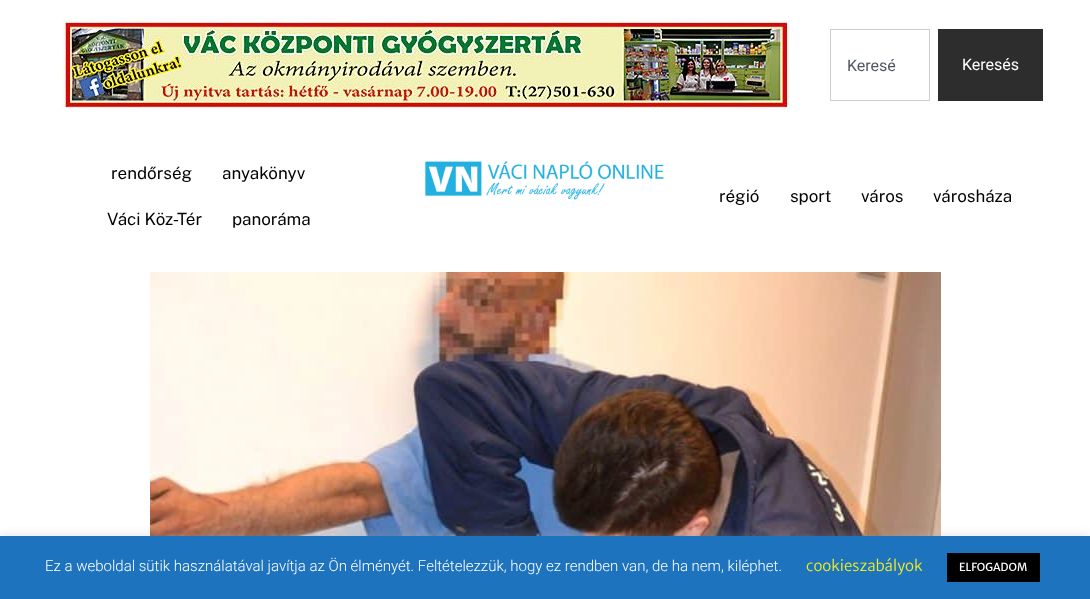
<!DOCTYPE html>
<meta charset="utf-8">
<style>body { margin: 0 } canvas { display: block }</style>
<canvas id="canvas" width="1090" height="599"></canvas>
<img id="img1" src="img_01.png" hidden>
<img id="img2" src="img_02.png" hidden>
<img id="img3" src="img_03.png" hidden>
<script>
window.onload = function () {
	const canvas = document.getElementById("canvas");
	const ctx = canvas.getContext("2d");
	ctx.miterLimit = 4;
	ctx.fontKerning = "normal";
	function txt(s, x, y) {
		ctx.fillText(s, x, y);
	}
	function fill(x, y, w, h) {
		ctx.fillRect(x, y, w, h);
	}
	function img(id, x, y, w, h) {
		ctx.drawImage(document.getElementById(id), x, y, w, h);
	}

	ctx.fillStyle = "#FFFFFF";
	fill(0, 0, 1090, 599);
	img("img1", 62, 20, 728, 90);
	ctx.strokeStyle = "#CDCDCD";
	ctx.strokeRect(830.5, 29.5, 99, 71);
	ctx.fillStyle = "#2D2D2D";
	fill(938, 29, 105, 72);
	img("img2", 425, 161, 239, 39);
	img("img3", 150, 272, 791, 264);
	ctx.fillStyle = "rgba(172, 171, 171, 0.3)";
	ctx.filter = "blur(5px)";
	ctx.beginPath();
	ctx.rect(0, 535, 1090, 63);
	ctx.fill();
	ctx.filter = "none";
	ctx.fillStyle = "#1E73BE";
	fill(0, 536, 1090, 63);
	ctx.fillStyle = "#000000";
	fill(947, 553, 93, 29);
	ctx.font = "16px Roboto";
	ctx.fillStyle = "#515962";
	txt("Keresé", 847, 71);
	ctx.fillStyle = "#FFFFFF";
	txt("Keresés", 962, 70);
	ctx.font = "17px Public Sans";
	ctx.fillStyle = "#000000";
	txt("rendőrség", 111, 179);
	txt("anyakönyv", 222, 179);
	txt("Váci Köz-Tér", 107, 225);
	txt("panoráma", 232, 225);
	txt("régió", 719, 202);
	txt("sport", 790, 202);
	txt("város", 861, 202);
	txt("városháza", 933, 202);
	ctx.font = "300 15px Roboto";
	ctx.fillStyle = "#FFFFFF";
	txt("Ez a weboldal sütik használatával javítja az Ön élményét. Feltételezzük, hogy ez rendben van, de ha nem, kiléphet.", 45, 571);
	ctx.font = "300 15px Merriweather Sans";
	ctx.fillStyle = "#EEEE22";
	txt("cookieszabályok", 806, 571);
	ctx.font = "11px Merriweather Sans";
	ctx.fillStyle = "#FFFFFF";
	txt("ELFOGADOM", 959, 571);
};
</script>
